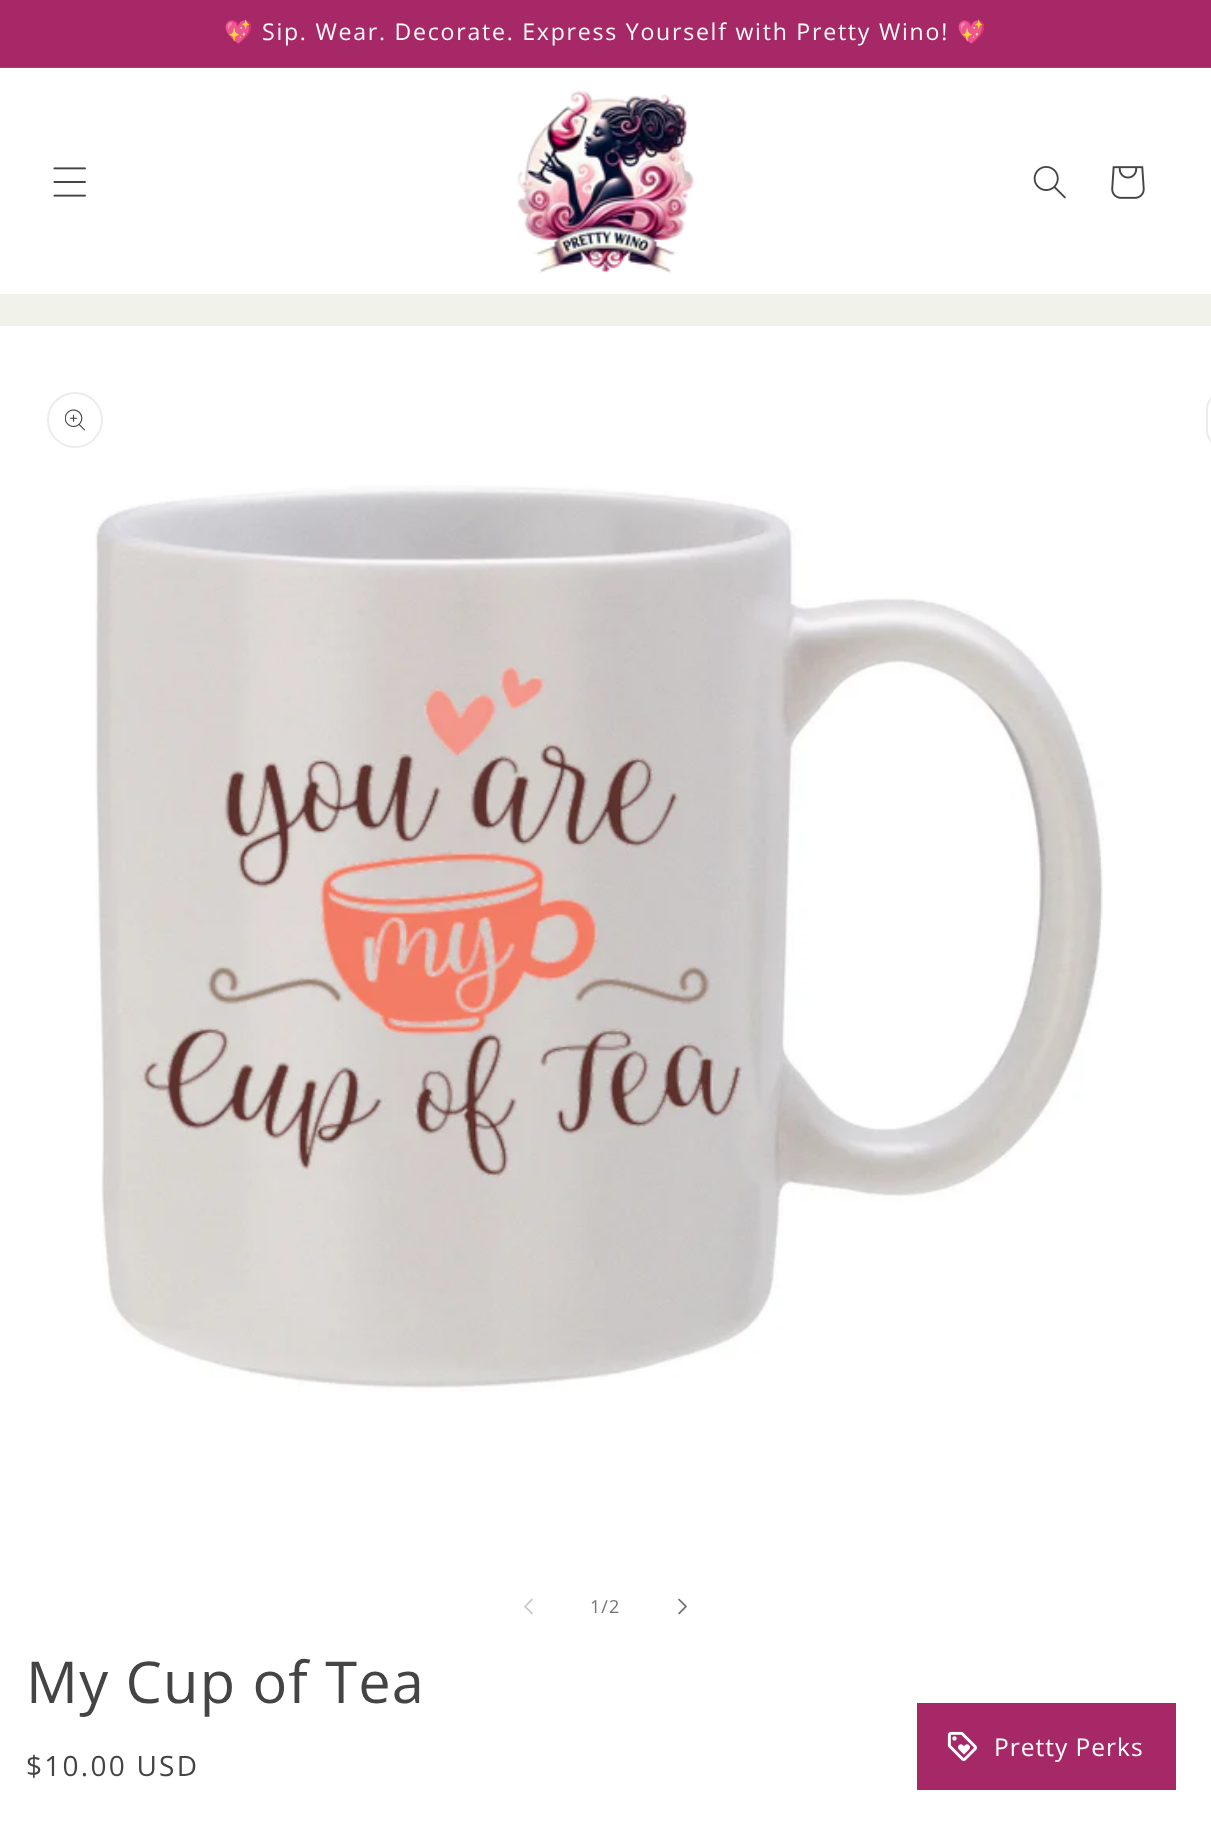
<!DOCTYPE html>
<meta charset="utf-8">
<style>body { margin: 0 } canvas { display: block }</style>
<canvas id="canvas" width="1211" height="1825"></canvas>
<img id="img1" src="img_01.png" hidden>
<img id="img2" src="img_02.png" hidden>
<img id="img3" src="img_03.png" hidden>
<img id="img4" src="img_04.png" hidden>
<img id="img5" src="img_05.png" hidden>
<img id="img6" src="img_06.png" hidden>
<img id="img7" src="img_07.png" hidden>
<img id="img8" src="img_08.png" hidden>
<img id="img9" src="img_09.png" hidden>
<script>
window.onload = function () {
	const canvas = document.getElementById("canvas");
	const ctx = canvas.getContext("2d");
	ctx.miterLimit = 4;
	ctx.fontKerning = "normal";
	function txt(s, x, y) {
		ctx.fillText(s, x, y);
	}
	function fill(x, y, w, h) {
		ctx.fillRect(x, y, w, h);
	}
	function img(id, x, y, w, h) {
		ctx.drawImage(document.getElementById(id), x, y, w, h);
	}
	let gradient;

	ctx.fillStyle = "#FFFFFF";
	fill(0, 0, 1211, 1825);
	gradient = ctx.createLinearGradient(605, 0, 606, 1825);
	gradient.addColorStop(0, "#F0F4EC");
	gradient.addColorStop(1, "#F1EBE2");
	ctx.fillStyle = gradient;
	fill(0, 294, 1211, 32);
	ctx.fillStyle = "#A72867";
	fill(0, 0, 1211, 67);
	ctx.fillStyle = "#AE3973";
	fill(0, 67, 1211, 1);
	img("img1", 53, 167, 33, 30);
	img("img2", 517, 90, 177, 184);
	img("img3", 1033, 166, 33, 33);
	img("img4", 1111, 166, 34, 33);
	ctx.beginPath();
	ctx.arc(75, 420, 27, 0, Math.PI * 2);
	ctx.strokeStyle = "#ECECEC";
	ctx.lineWidth = 2;
	ctx.stroke();
	img("img5", 65, 409, 20, 22);
	img("img6", 95, 485, 1009, 907);
	ctx.beginPath();
	ctx.roundRect(1207, 393, 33, 54, 27);
	ctx.stroke();
	img("img7", 524, 1598, 9, 17);
	img("img8", 678, 1598, 9, 17);
	ctx.fillStyle = "#A72867";
	fill(917, 1703, 259, 87);
	img("img9", 947, 1731, 30, 31);
	ctx.letterSpacing = "1.75px";
	ctx.font = "23.1px Noto Color Emoji";
	ctx.fillStyle = "#FDFBF7";
	txt("💖", 224, 40);
	ctx.font = "23.1px Open Sans";
	txt("Sip. Wear. Decorate. Express Yourself with Pretty Wino!", 262, 40);
	ctx.font = "23.1px Noto Color Emoji";
	txt("💖", 957, 40);
	ctx.letterSpacing = "1px";
	ctx.font = "18px Open Sans";
	ctx.fillStyle = "#737373";
	txt("1/2", 590, 1613);
	ctx.letterSpacing = "1.2px";
	ctx.font = "57.75px Open Sans";
	ctx.fillStyle = "#444444";
	txt("My Cup of Tea", 26, 1703);
	ctx.letterSpacing = "2.25px";
	ctx.font = "28px Open Sans";
	txt("$10.00 USD", 26, 1776);
	ctx.letterSpacing = "1px";
	ctx.font = "24.5px Open Sans";
	ctx.fillStyle = "#FFFFFF";
	txt("Pretty Perks", 994, 1756);
};
</script>
